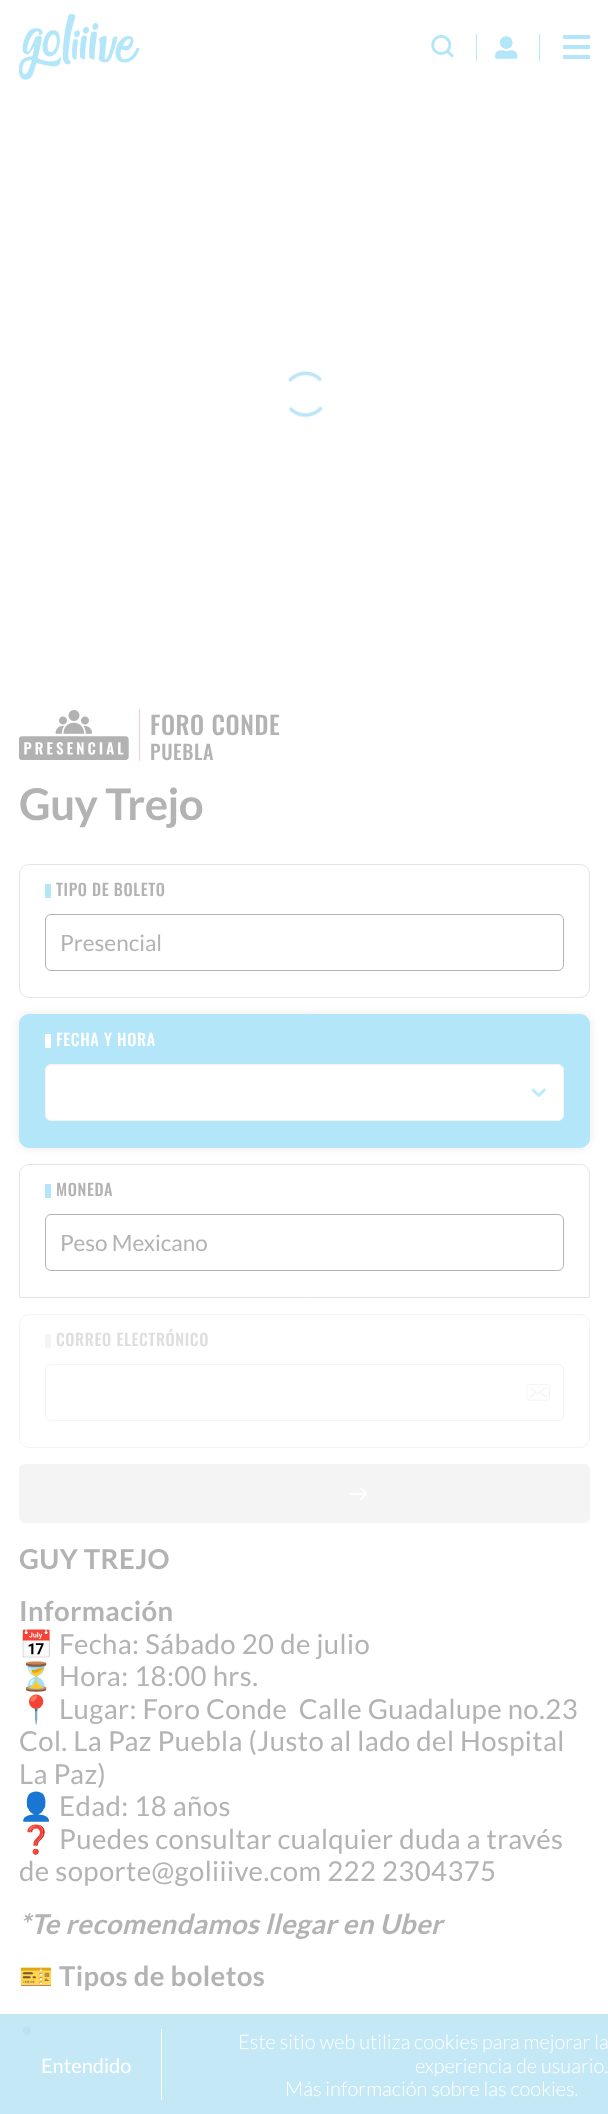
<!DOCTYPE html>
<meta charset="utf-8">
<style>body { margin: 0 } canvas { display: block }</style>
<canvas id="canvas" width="608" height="2114"></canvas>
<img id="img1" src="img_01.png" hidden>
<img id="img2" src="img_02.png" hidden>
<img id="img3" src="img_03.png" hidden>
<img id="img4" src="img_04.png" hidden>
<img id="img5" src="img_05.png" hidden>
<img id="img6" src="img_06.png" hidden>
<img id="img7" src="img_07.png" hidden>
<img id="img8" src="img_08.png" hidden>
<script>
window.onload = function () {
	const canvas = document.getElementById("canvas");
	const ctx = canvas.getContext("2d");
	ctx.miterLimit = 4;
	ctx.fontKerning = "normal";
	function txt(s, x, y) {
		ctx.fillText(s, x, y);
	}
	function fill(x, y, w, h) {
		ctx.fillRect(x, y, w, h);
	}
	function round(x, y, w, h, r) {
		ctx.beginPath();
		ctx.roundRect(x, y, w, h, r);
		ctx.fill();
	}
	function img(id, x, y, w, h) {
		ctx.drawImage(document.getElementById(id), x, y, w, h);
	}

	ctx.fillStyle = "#FFFFFF";
	fill(0, 0, 608, 2114);
	ctx.fillStyle = "#C5E8F7";
	fill(0, 2014, 608, 100);
	img("img1", 19, 14, 121, 66);
	img("img2", 431, 35, 23, 23);
	ctx.fillStyle = "#B3E6F8";
	fill(476, 34, 1, 27);
	img("img3", 495, 36, 23, 23);
	fill(539, 34, 1, 27);
	fill(563, 45, 27, 4);
	fill(563, 35, 27, 4);
	fill(563, 55, 27, 4);
	img("img4", 282, 370, 46, 48);
	img("img5", 19, 710, 110, 50);
	ctx.fillStyle = "#FAC6DB";
	fill(139, 709, 1, 52);
	ctx.beginPath();
	ctx.roundRect(19.5, 864.5, 570, 133, 9.5);
	ctx.strokeStyle = "#E5E5E5";
	ctx.stroke();
	ctx.fillStyle = "#B3E6F8";
	fill(45, 884, 6, 14);
	ctx.beginPath();
	ctx.roundRect(45.5, 914.5, 518, 56, 5.5);
	ctx.strokeStyle = "#B3B3B3";
	ctx.stroke();
	ctx.fillStyle = "rgba(179, 179, 179, 0.3)";
	ctx.filter = "blur(4px)";
	ctx.beginPath();
	ctx.roundRect(19, 1014, 571, 134, 10);
	ctx.fill();
	ctx.filter = "none";
	ctx.fillStyle = "#B3E6F8";
	ctx.beginPath();
	ctx.roundRect(19.5, 1014.5, 570, 133, 9.5);
	ctx.fill();
	ctx.strokeStyle = "#B3E6F8";
	ctx.stroke();
	ctx.fillStyle = "#FFFFFF";
	fill(45, 1034, 6, 14);
	ctx.beginPath();
	ctx.roundRect(45.5, 1064.5, 518, 56, 5.5);
	ctx.fill();
	ctx.strokeStyle = "#F4F4F4";
	ctx.stroke();
	img("img6", 531, 1088, 16, 10);
	ctx.beginPath();
	ctx.roundRect(19.5, 1164.5, 570, 133, [9.5, 9.5, 0, 0]);
	ctx.strokeStyle = "#E5E5E5";
	ctx.stroke();
	ctx.fillStyle = "#B3E6F8";
	fill(45, 1184, 6, 14);
	ctx.beginPath();
	ctx.roundRect(45.5, 1214.5, 518, 56, 5.5);
	ctx.strokeStyle = "#B3B3B3";
	ctx.stroke();
	ctx.beginPath();
	ctx.roundRect(19.5, 1314.5, 570, 133, 9.5);
	ctx.strokeStyle = "#F4F4F4";
	ctx.stroke();
	ctx.fillStyle = "#F4F4F4";
	fill(45, 1334, 6, 14);
	ctx.beginPath();
	ctx.roundRect(45.5, 1364.5, 518, 56, 5.5);
	ctx.stroke();
	img("img7", 526, 1384, 24, 17);
	round(19, 1464, 571, 59, 6);
	img("img8", 349, 1488, 18, 12);
	ctx.fillStyle = "#BEE1EF";
	round(23, 2026, 8, 9, 4);
	ctx.fillStyle = "#FFFFFF";
	fill(161, 2029, 1, 71);
	ctx.letterSpacing = "0.6px";
	ctx.font = "500 25px Oswald";
	ctx.fillStyle = "#B3B3B3";
	txt("FORO CONDE", 150, 735);
	ctx.font = "500 20px Oswald";
	txt("PUEBLA", 150, 760);
	ctx.letterSpacing = "-0.5px";
	ctx.font = "bold 43.75px Lato";
	txt("Guy Trejo", 19, 820);
	ctx.letterSpacing = "0.6px";
	ctx.font = "500 16.25px Oswald";
	txt("TIPO DE BOLETO", 56, 896);
	ctx.letterSpacing = "0px";
	ctx.font = "22.5px Lato";
	txt("Presencial", 60, 951);
	ctx.letterSpacing = "0.6px";
	ctx.font = "500 16.25px Oswald";
	ctx.fillStyle = "#FFFFFF";
	txt("FECHA Y HORA", 56, 1046);
	ctx.fillStyle = "#B3B3B3";
	txt("MONEDA", 56, 1196);
	ctx.letterSpacing = "0px";
	ctx.font = "22.5px Lato";
	txt("Peso Mexicano", 60, 1251);
	ctx.letterSpacing = "0.6px";
	ctx.font = "500 16.25px Oswald";
	ctx.fillStyle = "#DEDEDE";
	txt("CORREO ELECTRÓNICO", 56, 1346);
	ctx.letterSpacing = "0.4px";
	ctx.font = "bold 27.5px Lato";
	ctx.fillStyle = "#B3B3B3";
	txt("GUY TREJO", 19, 1569);
	txt("Información", 19, 1621);
	ctx.font = "27.5px Noto Color Emoji";
	txt("📅", 19, 1654);
	ctx.font = "27.5px Lato";
	txt("Fecha: Sábado 20 de julio", 59, 1654);
	ctx.font = "27.5px Noto Color Emoji";
	txt("⏳", 19, 1686);
	ctx.font = "27.5px Lato";
	txt("Hora: 18:00 hrs.", 59, 1686);
	ctx.font = "27.5px Noto Color Emoji";
	txt("📍", 19, 1719);
	ctx.font = "27.5px Lato";
	txt("Lugar: Foro Conde  Calle Guadalupe no.23", 59, 1719);
	txt("Col. La Paz Puebla (Justo al lado del Hospital", 19, 1751);
	txt("La Paz)", 19, 1784);
	ctx.font = "27.5px Noto Color Emoji";
	txt("👤", 19, 1816);
	ctx.font = "27.5px Lato";
	txt("Edad: 18 años", 59, 1816);
	ctx.font = "27.5px Noto Color Emoji";
	txt("❓", 19, 1849);
	ctx.font = "27.5px Lato";
	txt("Puedes consultar cualquier duda a través", 59, 1849);
	txt("de soporte@goliiive.com 222 2304375", 19, 1881);
	ctx.font = "italic bold 27.5px Lato";
	txt("*Te recomendamos llegar en Uber", 19, 1934);
	ctx.font = "bold 27.5px Noto Color Emoji";
	txt("🎫", 19, 1986);
	ctx.font = "bold 27.5px Lato";
	txt("Tipos de boletos", 59, 1986);
	ctx.letterSpacing = "0px";
	ctx.font = "20px Lato";
	ctx.fillStyle = "#FFFFFF";
	txt("Entendido", 41, 2073);
	ctx.font = "300 20px Lato";
	txt("Este sitio web utiliza cookies para mejorar la", 238, 2049);
	txt("experiencia de usuario.", 415, 2073);
	txt("Más información sobre las cookies.", 285, 2096);
};
</script>
